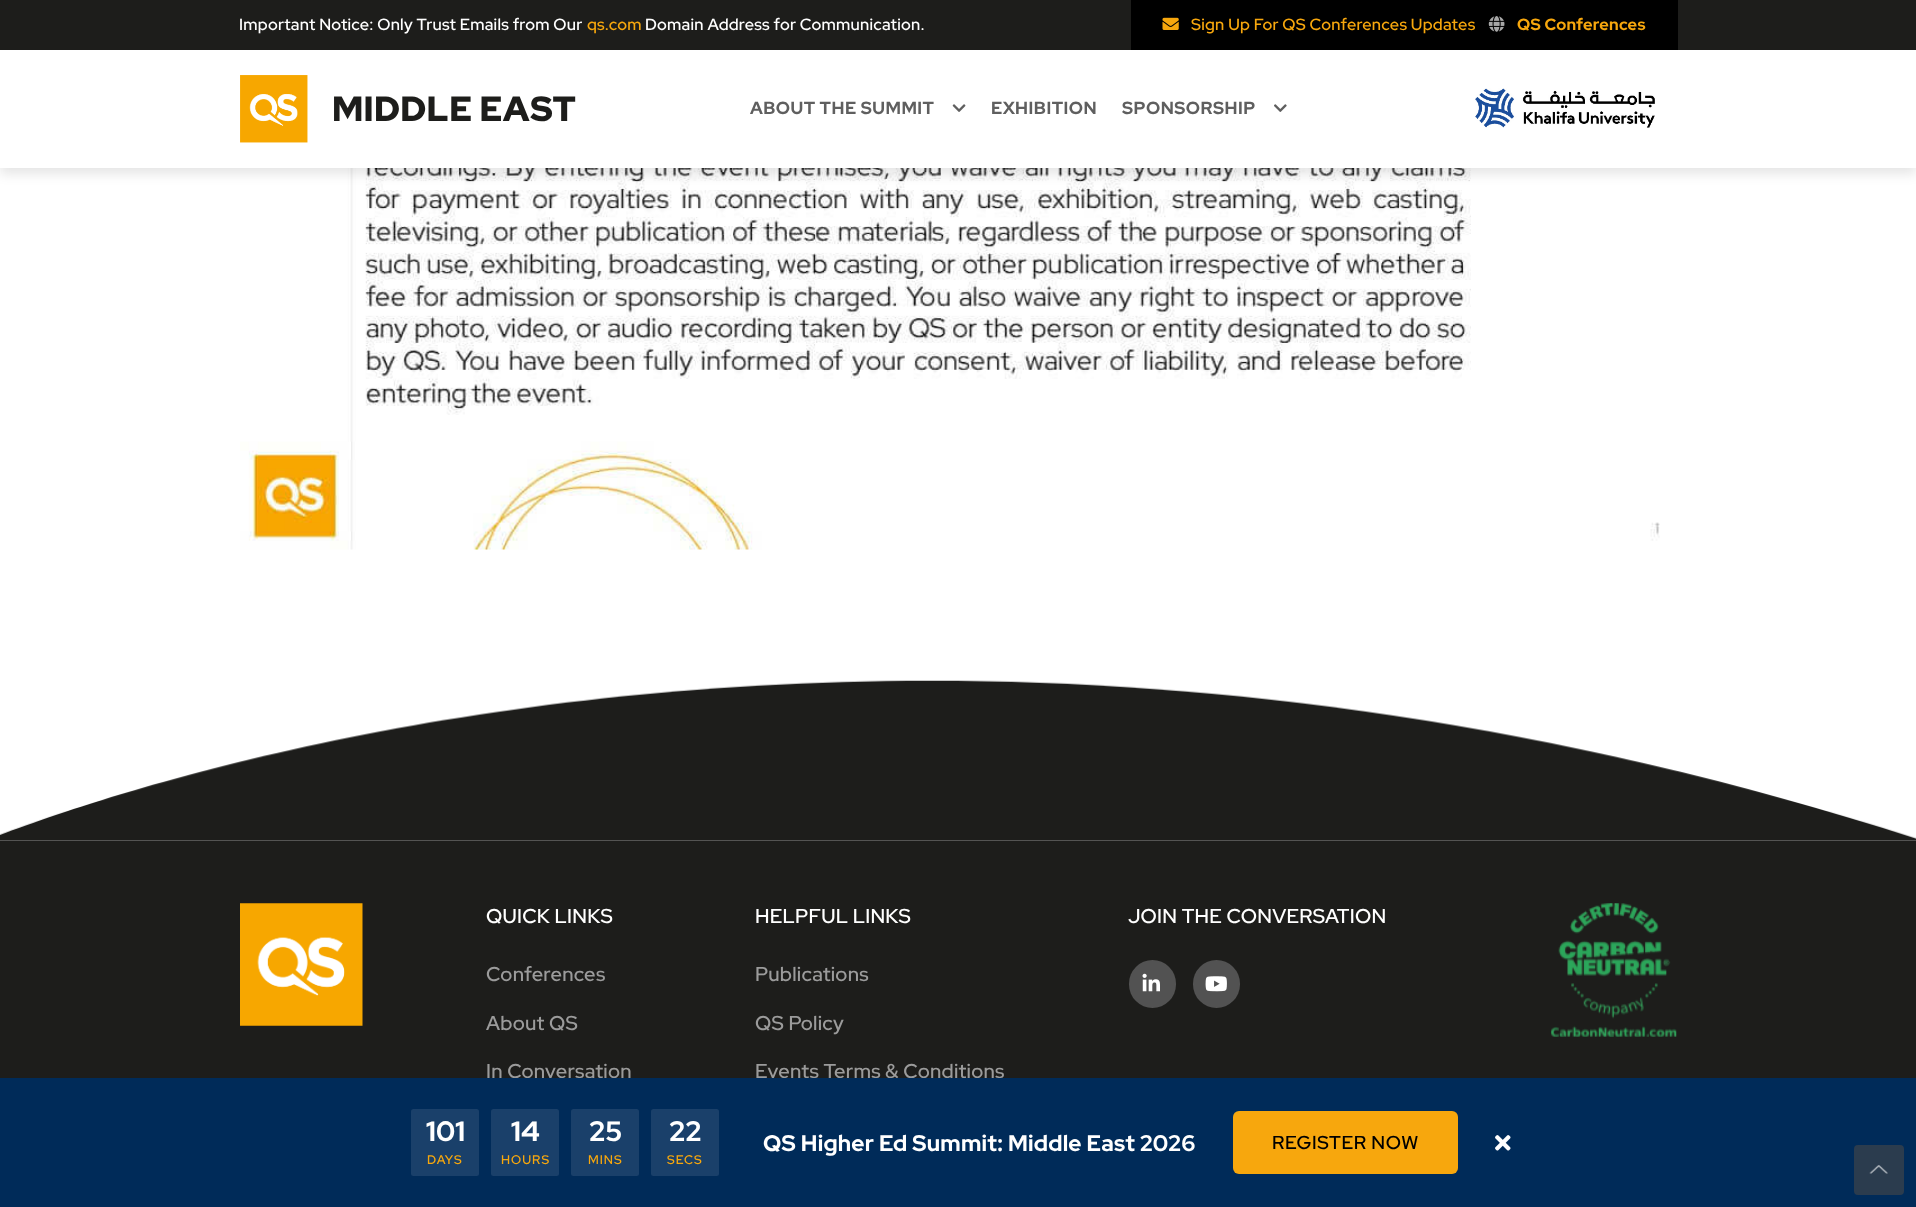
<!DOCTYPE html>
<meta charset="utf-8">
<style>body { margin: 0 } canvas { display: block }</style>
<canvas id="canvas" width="1916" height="1207"></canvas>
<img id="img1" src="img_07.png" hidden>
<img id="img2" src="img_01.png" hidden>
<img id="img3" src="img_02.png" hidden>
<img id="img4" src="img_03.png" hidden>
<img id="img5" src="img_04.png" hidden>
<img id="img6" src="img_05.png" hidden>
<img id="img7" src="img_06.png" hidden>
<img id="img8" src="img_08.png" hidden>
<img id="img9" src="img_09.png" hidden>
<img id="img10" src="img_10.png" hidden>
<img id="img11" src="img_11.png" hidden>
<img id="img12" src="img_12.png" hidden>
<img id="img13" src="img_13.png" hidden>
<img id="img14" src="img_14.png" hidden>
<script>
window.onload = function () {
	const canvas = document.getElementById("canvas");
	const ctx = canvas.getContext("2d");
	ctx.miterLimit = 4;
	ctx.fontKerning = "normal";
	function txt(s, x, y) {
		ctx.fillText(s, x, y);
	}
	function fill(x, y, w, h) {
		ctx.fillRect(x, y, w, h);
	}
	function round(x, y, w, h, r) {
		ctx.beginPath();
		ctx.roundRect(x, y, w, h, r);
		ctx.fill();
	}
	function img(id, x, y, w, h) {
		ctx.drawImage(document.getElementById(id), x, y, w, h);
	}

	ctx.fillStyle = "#FFFFFF";
	fill(0, 0, 1916, 1207);
	img("img1", 240, 168, 1420, 382);
	ctx.fillStyle = "rgba(0, 0, 0, 0.1)";
	ctx.filter = "blur(6px)";
	ctx.beginPath();
	ctx.rect(0, 6, 1916, 168);
	ctx.fill();
	ctx.filter = "none";
	ctx.fillStyle = "#FFFFFF";
	fill(0, 50, 1916, 118);
	ctx.fillStyle = "#1D1D1B";
	fill(0, 0, 1916, 50);
	ctx.fillStyle = "#000000";
	fill(1131, 0, 547, 50);
	img("img2", 1162, 17, 17, 13);
	img("img3", 1488, 16, 17, 16);
	img("img4", 240, 75, 68, 68);
	img("img5", 952, 104, 14, 8);
	img("img6", 1274, 104, 13, 8);
	img("img7", 1475, 88, 180, 40);
	img("img8", 0, 680, 1916, 161);
	ctx.fillStyle = "#1D1D1B";
	fill(0, 841, 1916, 237);
	img("img9", 240, 903, 123, 123);
	ctx.fillStyle = "#525252";
	round(1129, 960, 47, 48, 23.5);
	img("img10", 1142, 973, 18, 19);
	round(1193, 960, 47, 48, 23.5);
	img("img11", 1205, 976, 22, 16);
	img("img12", 1551, 903, 126, 134);
	ctx.letterSpacing = "0.25px";
	ctx.font = "500 16.25px Red Hat Display";
	ctx.fillStyle = "#FFFFFF";
	txt("Important Notice: Only Trust Emails from Our", 239, 30);
	ctx.fillStyle = "#F7A70D";
	txt("qs.com", 587, 30);
	ctx.fillStyle = "#FFFFFF";
	txt("Domain Address for Communication.", 645, 30);
	ctx.fillStyle = "#F7A70D";
	txt("Sign Up For QS Conferences Updates", 1191, 30);
	ctx.font = "bold 16.25px Red Hat Display";
	txt("QS Conferences", 1517, 30);
	ctx.font = "900 35px Red Hat Display";
	ctx.fillStyle = "#1D1D1B";
	txt("MIDDLE EAST", 332, 121);
	ctx.letterSpacing = "0.5px";
	ctx.font = "bold 17.5px Red Hat Display";
	ctx.fillStyle = "#5F5F5F";
	txt("ABOUT THE SUMMIT", 750, 114);
	txt("EXHIBITION", 991, 114);
	txt("SPONSORSHIP", 1122, 114);
	ctx.letterSpacing = "0.25px";
	ctx.font = "500 20px Red Hat Display";
	ctx.fillStyle = "#FFFFFF";
	txt("QUICK LINKS", 486, 923);
	ctx.fillStyle = "#9B9B9B";
	txt("Conferences", 486, 981);
	txt("About QS", 486, 1030);
	txt("In Conversation", 486, 1078);
	ctx.fillStyle = "#FFFFFF";
	txt("HELPFUL LINKS", 755, 923);
	ctx.fillStyle = "#9B9B9B";
	txt("Publications", 755, 981);
	txt("QS Policy", 755, 1030);
	txt("Events Terms & Conditions", 755, 1078);
	ctx.fillStyle = "#FFFFFF";
	txt("JOIN THE CONVERSATION", 1128, 923);
	ctx.fillStyle = "#002B59";
	fill(0, 1078, 1916, 129);
	ctx.fillStyle = "#1A406A";
	round(411, 1109, 68, 67, 2.5);
	ctx.font = "bold 28px Red Hat Display";
	ctx.fillStyle = "#FFFFFF";
	txt("101", 426, 1141);
	ctx.letterSpacing = "1px";
	ctx.font = "500 12.5px Red Hat Display";
	ctx.fillStyle = "#F7A70D";
	txt("DAYS", 427, 1164);
	ctx.fillStyle = "#1A406A";
	round(491, 1109, 68, 67, 2.5);
	ctx.letterSpacing = "0.25px";
	ctx.font = "bold 28px Red Hat Display";
	ctx.fillStyle = "#FFFFFF";
	txt("14", 511, 1141);
	ctx.letterSpacing = "1px";
	ctx.font = "500 12.5px Red Hat Display";
	ctx.fillStyle = "#F7A70D";
	txt("HOURS", 501, 1164);
	ctx.fillStyle = "#1A406A";
	round(571, 1109, 68, 67, 2.5);
	ctx.letterSpacing = "0.25px";
	ctx.font = "bold 28px Red Hat Display";
	ctx.fillStyle = "#FFFFFF";
	txt("25", 589, 1141);
	ctx.letterSpacing = "1px";
	ctx.font = "500 12.5px Red Hat Display";
	ctx.fillStyle = "#F7A70D";
	txt("MINS", 588, 1164);
	ctx.fillStyle = "#1A406A";
	round(651, 1109, 68, 67, 2.5);
	ctx.letterSpacing = "0.25px";
	ctx.font = "bold 28px Red Hat Display";
	ctx.fillStyle = "#FFFFFF";
	txt("22", 669, 1141);
	ctx.letterSpacing = "1px";
	ctx.font = "500 12.5px Red Hat Display";
	ctx.fillStyle = "#F7A70D";
	txt("SECS", 667, 1164);
	ctx.letterSpacing = "0.25px";
	ctx.font = "bold 22.5px Red Hat Display";
	ctx.fillStyle = "#FFFFFF";
	txt("QS Higher Ed Summit: Middle East 2026", 763, 1151);
	ctx.fillStyle = "#F7A70D";
	round(1233, 1111, 225, 63, 6);
	ctx.letterSpacing = "0.6px";
	ctx.font = "500 18.75px Red Hat Display";
	ctx.fillStyle = "#000000";
	txt("REGISTER NOW", 1272, 1149);
	img("img13", 1495, 1135, 16, 16);
	ctx.fillStyle = "#2B3C4E";
	round(1854, 1145, 50, 50, 4);
	img("img14", 1869, 1165, 19, 9);
};
</script>
